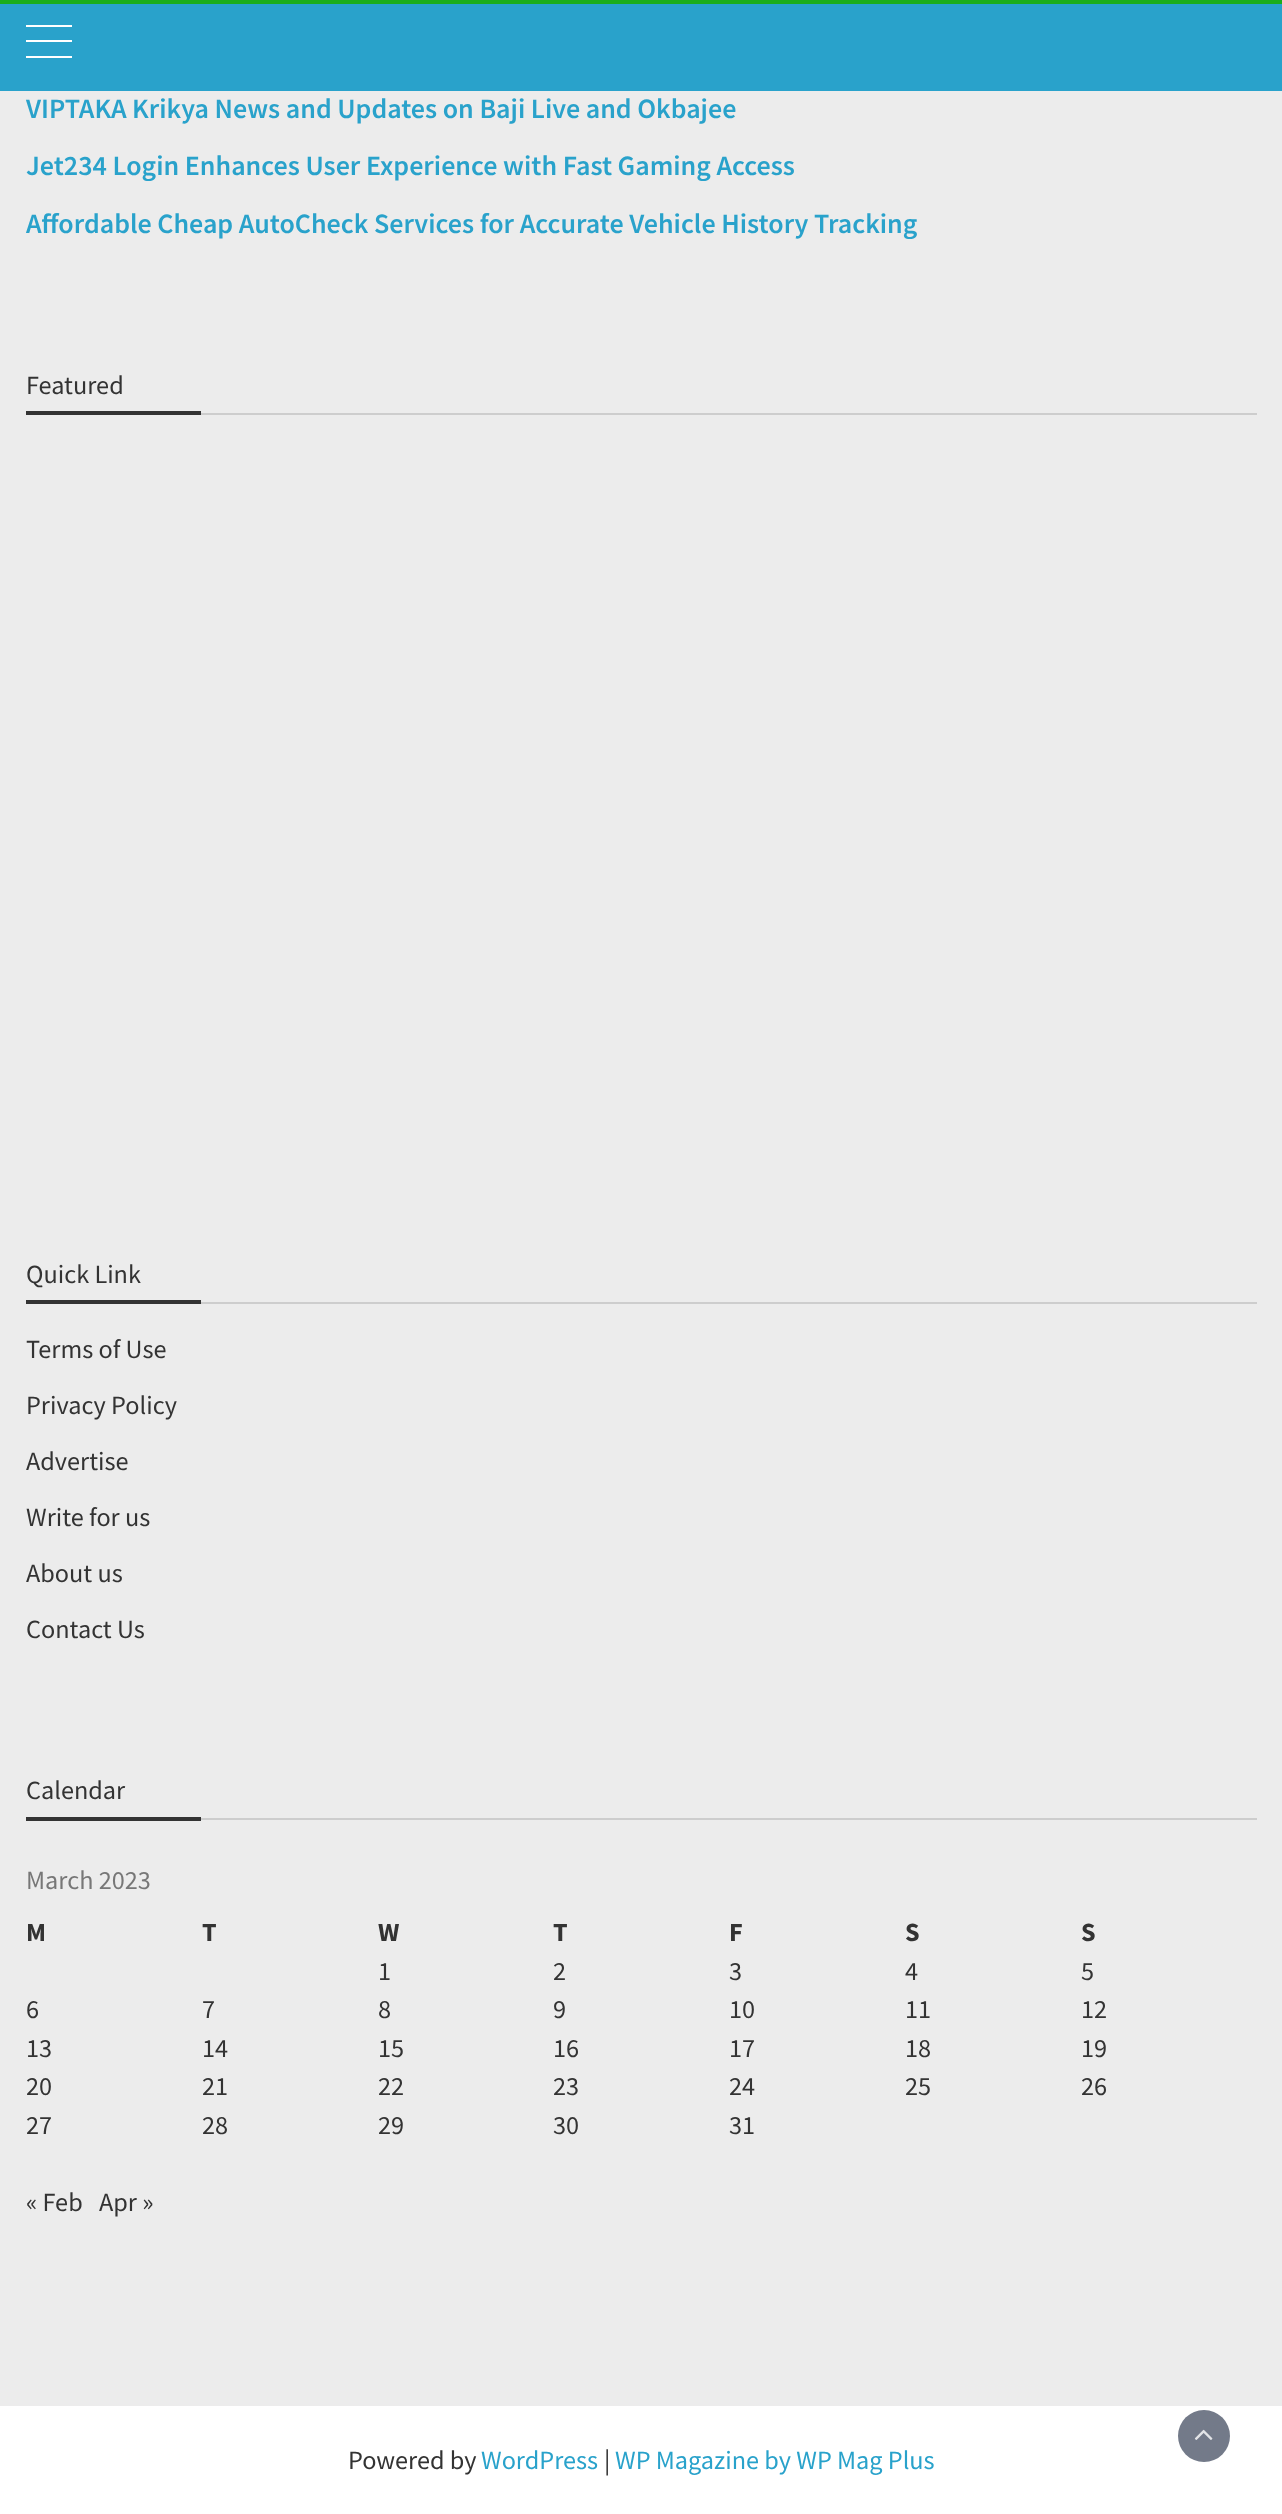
<!DOCTYPE html>
<meta charset="utf-8">
<style>body { margin: 0 } canvas { display: block }</style>
<canvas id="canvas" width="1282" height="2514"></canvas>
<img id="img1" src="img_01.png" hidden>
<script>
window.onload = function () {
	const canvas = document.getElementById("canvas");
	const ctx = canvas.getContext("2d");
	ctx.miterLimit = 4;
	ctx.fontKerning = "normal";
	function txt(s, x, y) {
		ctx.fillText(s, x, y);
	}
	function fill(x, y, w, h) {
		ctx.fillRect(x, y, w, h);
	}
	function img(id, x, y, w, h) {
		ctx.drawImage(document.getElementById(id), x, y, w, h);
	}

	ctx.fillStyle = "#FFFFFF";
	fill(0, 0, 1282, 2514);
	ctx.fillStyle = "#1BAD1B";
	fill(0, 0, 1282, 4);
	ctx.fillStyle = "#29A2CB";
	fill(0, 4, 1282, 87);
	ctx.fillStyle = "#FFFFFF";
	fill(26, 25, 46, 2);
	fill(26, 40, 46, 2);
	fill(26, 56, 46, 2);
	ctx.fillStyle = "#ECECEC";
	fill(0, 91, 1282, 2315);
	ctx.fillStyle = "#CDCDCD";
	fill(201, 413, 1056, 2);
	ctx.fillStyle = "#333333";
	fill(26, 411, 175, 4);
	ctx.fillStyle = "#CDCDCD";
	fill(201, 1302, 1056, 2);
	ctx.fillStyle = "#333333";
	fill(26, 1300, 175, 4);
	ctx.fillStyle = "#CDCDCD";
	fill(201, 1818, 1056, 2);
	ctx.fillStyle = "#333333";
	fill(26, 1817, 175, 4);
	ctx.fillStyle = "#737A89";
	ctx.beginPath();
	ctx.arc(1204, 2436, 26, 0, Math.PI * 2);
	ctx.fill();
	img("img1", 1194, 2429, 19, 11);
	ctx.font = "600 28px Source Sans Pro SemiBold";
	ctx.fillStyle = "#29A2CB";
	txt("VIPTAKA Krikya News and Updates on Baji Live and Okbajee", 26, 118);
	txt("Jet234 Login Enhances User Experience with Fast Gaming Access", 26, 175);
	txt("Affordable Cheap AutoCheck Services for Accurate Vehicle History Tracking", 26, 233);
	ctx.font = "26.25px Source Sans Pro";
	ctx.fillStyle = "#333333";
	txt("Featured", 26, 394);
	txt("Quick Link", 26, 1283);
	txt("Terms of Use", 26, 1358);
	txt("Privacy Policy", 26, 1414);
	txt("Advertise", 26, 1470);
	txt("Write for us", 26, 1526);
	txt("About us", 26, 1582);
	txt("Contact Us", 26, 1638);
	txt("Calendar", 26, 1799);
	ctx.fillStyle = "#777777";
	txt("March 2023", 26, 1889);
	ctx.font = "bold 26.25px Source Sans Pro";
	ctx.fillStyle = "#333333";
	txt("M", 26, 1941);
	txt("T", 202, 1941);
	txt("W", 378, 1941);
	txt("T", 553, 1941);
	txt("F", 729, 1941);
	txt("S", 905, 1941);
	txt("S", 1081, 1941);
	ctx.font = "26.25px Source Sans Pro";
	txt("1", 378, 1980);
	txt("2", 553, 1980);
	txt("3", 729, 1980);
	txt("4", 905, 1980);
	txt("5", 1081, 1980);
	txt("6", 26, 2018);
	txt("7", 202, 2018);
	txt("8", 378, 2018);
	txt("9", 553, 2018);
	txt("10", 729, 2018);
	txt("11", 905, 2018);
	txt("12", 1081, 2018);
	txt("13", 26, 2057);
	txt("14", 202, 2057);
	txt("15", 378, 2057);
	txt("16", 553, 2057);
	txt("17", 729, 2057);
	txt("18", 905, 2057);
	txt("19", 1081, 2057);
	txt("20", 26, 2095);
	txt("21", 202, 2095);
	txt("22", 378, 2095);
	txt("23", 553, 2095);
	txt("24", 729, 2095);
	txt("25", 905, 2095);
	txt("26", 1081, 2095);
	txt("27", 26, 2134);
	txt("28", 202, 2134);
	txt("29", 378, 2134);
	txt("30", 553, 2134);
	txt("31", 729, 2134);
	txt("« Feb", 26, 2211);
	txt("Apr »", 99, 2211);
	txt("Powered by", 348, 2469);
	ctx.fillStyle = "#29A2CB";
	txt("WordPress", 481, 2469);
	ctx.fillStyle = "#333333";
	txt("|", 604, 2469);
	ctx.fillStyle = "#29A2CB";
	txt("WP Magazine by WP Mag Plus", 615, 2469);
};
</script>
